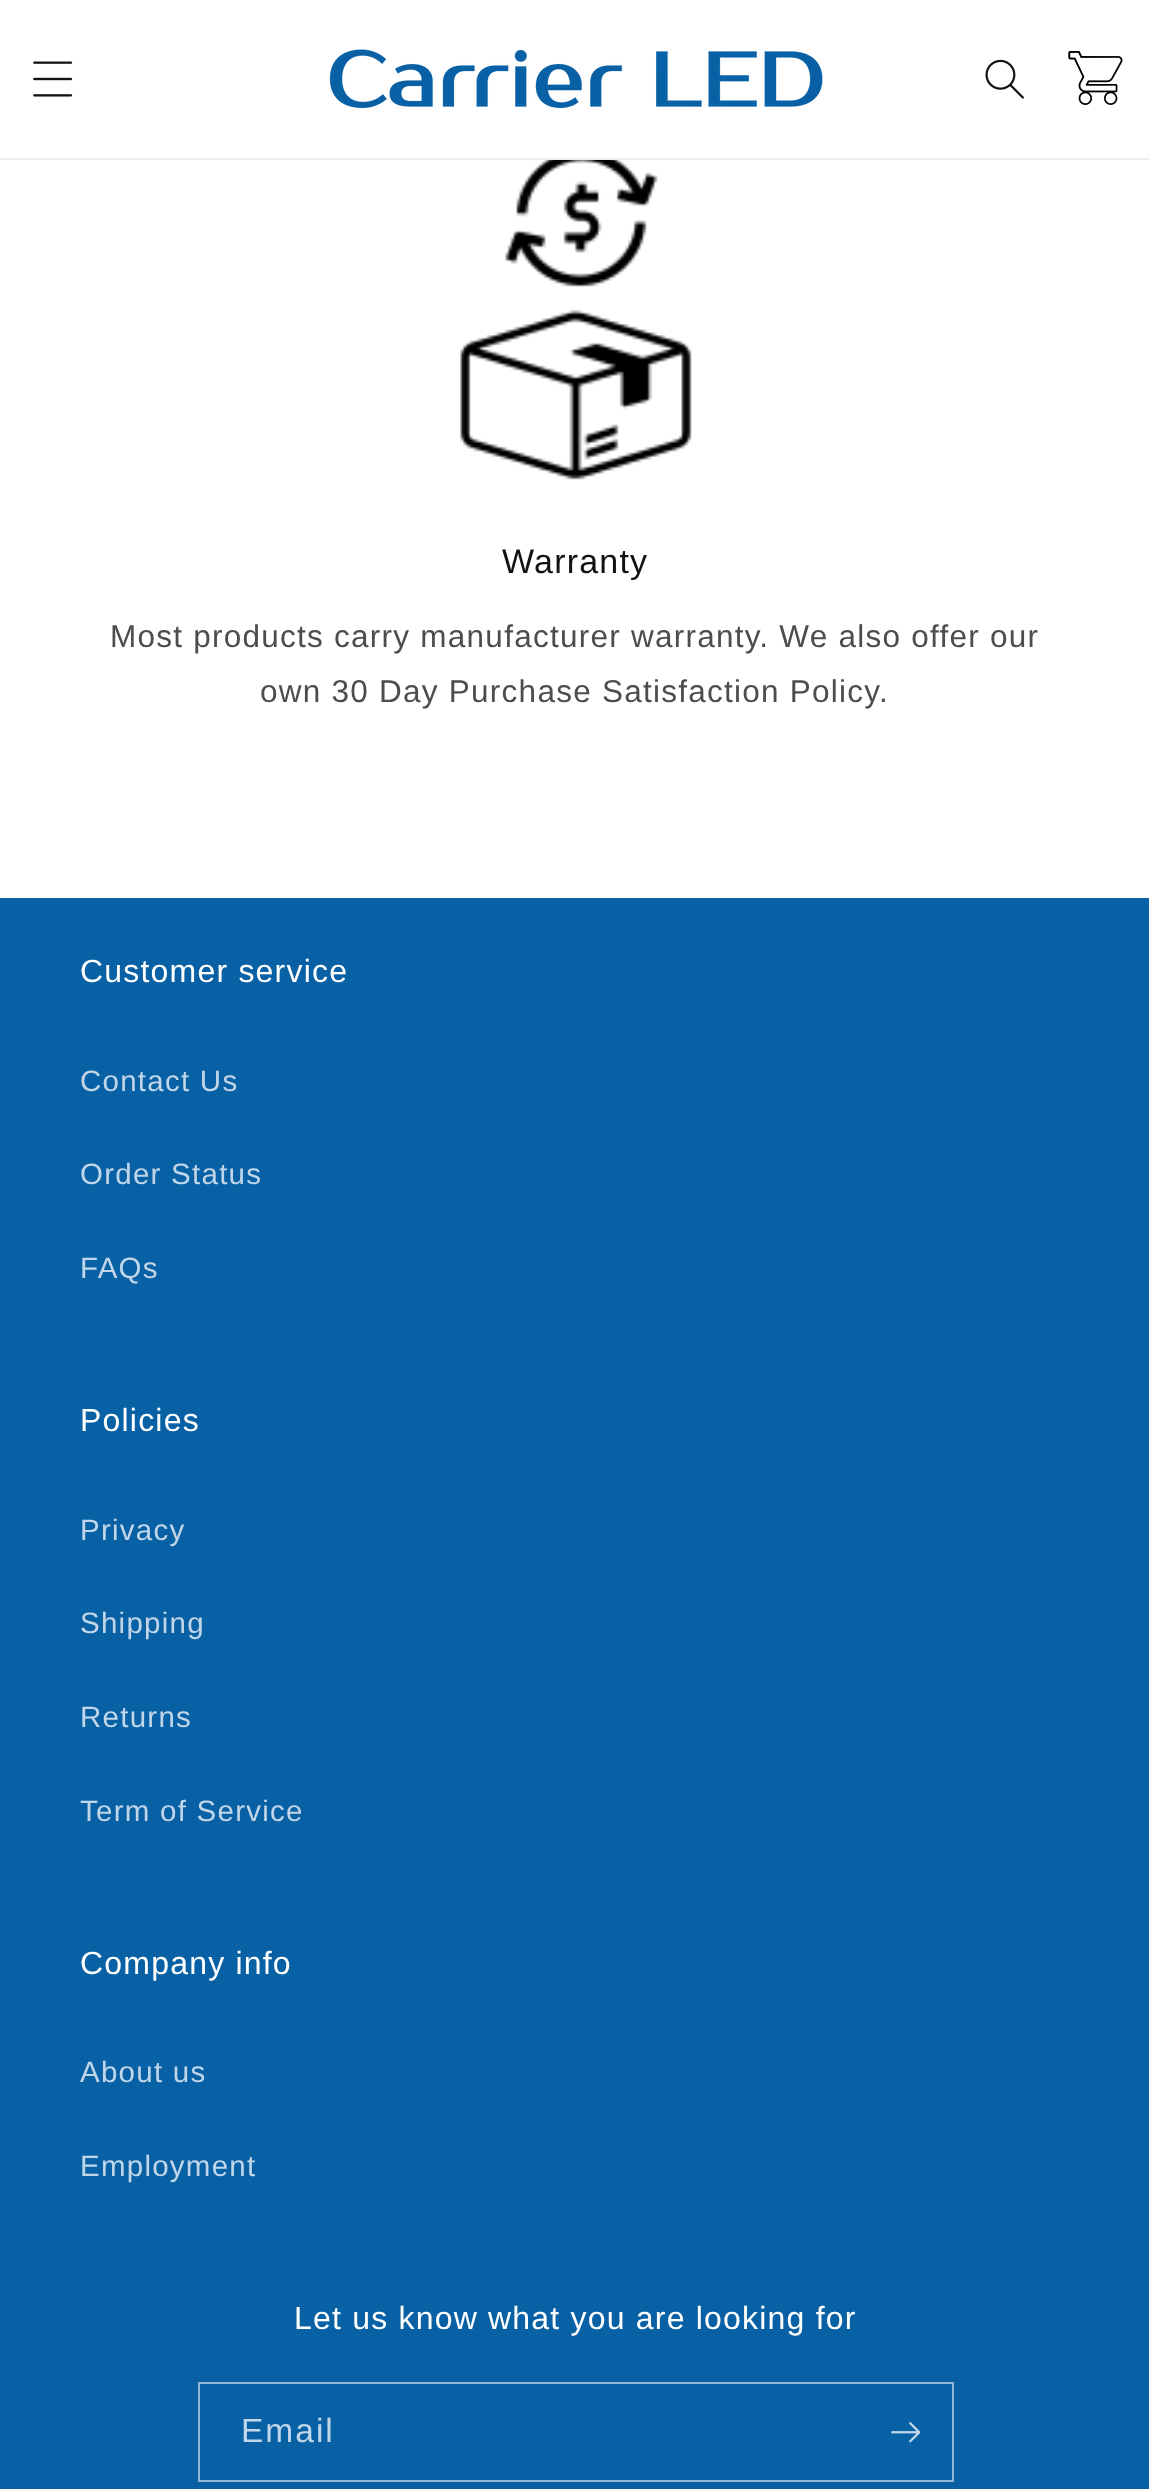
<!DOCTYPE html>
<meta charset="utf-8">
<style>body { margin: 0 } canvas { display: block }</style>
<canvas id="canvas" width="1149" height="2489"></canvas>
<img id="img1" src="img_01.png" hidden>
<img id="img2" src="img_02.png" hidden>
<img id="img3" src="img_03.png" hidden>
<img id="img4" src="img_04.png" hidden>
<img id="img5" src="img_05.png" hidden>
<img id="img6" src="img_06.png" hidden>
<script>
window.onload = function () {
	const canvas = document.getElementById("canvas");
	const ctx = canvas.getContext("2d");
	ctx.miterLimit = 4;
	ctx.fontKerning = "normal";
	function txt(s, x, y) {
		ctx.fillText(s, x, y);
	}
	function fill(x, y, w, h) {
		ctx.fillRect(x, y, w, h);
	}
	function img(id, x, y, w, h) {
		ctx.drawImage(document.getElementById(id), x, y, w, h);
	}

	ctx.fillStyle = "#FFFFFF";
	fill(0, 0, 1149, 2489);
	ctx.fillStyle = "#ECECEC";
	fill(0, 158, 1149, 2);
	img("img1", 33, 61, 40, 36);
	img("img2", 329, 49, 494, 60);
	img("img3", 985, 59, 39, 40);
	img("img4", 1068, 51, 55, 54);
	img("img5", 460, 160, 232, 320);
	ctx.fillStyle = "#0860A5";
	fill(0, 898, 1149, 1591);
	ctx.strokeStyle = "#90B7D7";
	ctx.lineWidth = 2;
	ctx.strokeRect(199, 2383, 754, 98);
	img("img6", 891, 2422, 29, 21);
	ctx.letterSpacing = "1.2px";
	ctx.font = "34px Liberation Sans";
	ctx.fillStyle = "#121212";
	txt("Warranty", 502, 573);
	ctx.letterSpacing = "1.25px";
	ctx.font = "31.5px Liberation Sans";
	ctx.fillStyle = "#4D4D4D";
	txt("Most products carry manufacturer warranty. We also offer our", 110, 647);
	txt("own 30 Day Purchase Satisfaction Policy.", 260, 702);
	ctx.letterSpacing = "1.2px";
	ctx.font = "32px Liberation Sans";
	ctx.fillStyle = "#FFFFFF";
	txt("Customer service", 80, 982);
	ctx.letterSpacing = "1.25px";
	ctx.font = "29.5px Liberation Sans";
	ctx.fillStyle = "#C1D7E9";
	txt("Contact Us", 80, 1091);
	txt("Order Status", 80, 1184);
	txt("FAQs", 80, 1278);
	ctx.letterSpacing = "1.2px";
	ctx.font = "32px Liberation Sans";
	ctx.fillStyle = "#FFFFFF";
	txt("Policies", 80, 1431);
	ctx.letterSpacing = "1.25px";
	ctx.font = "29.5px Liberation Sans";
	ctx.fillStyle = "#C1D7E9";
	txt("Privacy", 80, 1540);
	txt("Shipping", 80, 1633);
	txt("Returns", 80, 1727);
	txt("Term of Service", 80, 1821);
	ctx.letterSpacing = "1.2px";
	ctx.font = "32px Liberation Sans";
	ctx.fillStyle = "#FFFFFF";
	txt("Company info", 80, 1974);
	ctx.letterSpacing = "1.25px";
	ctx.font = "29.5px Liberation Sans";
	ctx.fillStyle = "#C1D7E9";
	txt("About us", 80, 2082);
	txt("Employment", 80, 2176);
	ctx.letterSpacing = "1.2px";
	ctx.font = "32px Liberation Sans";
	ctx.fillStyle = "#FFFFFF";
	txt("Let us know what you are looking for", 294, 2329);
	ctx.letterSpacing = "2px";
	ctx.font = "33.5px Liberation Sans";
	ctx.fillStyle = "#C1D7E9";
	txt("Email", 241, 2442);
};
</script>
